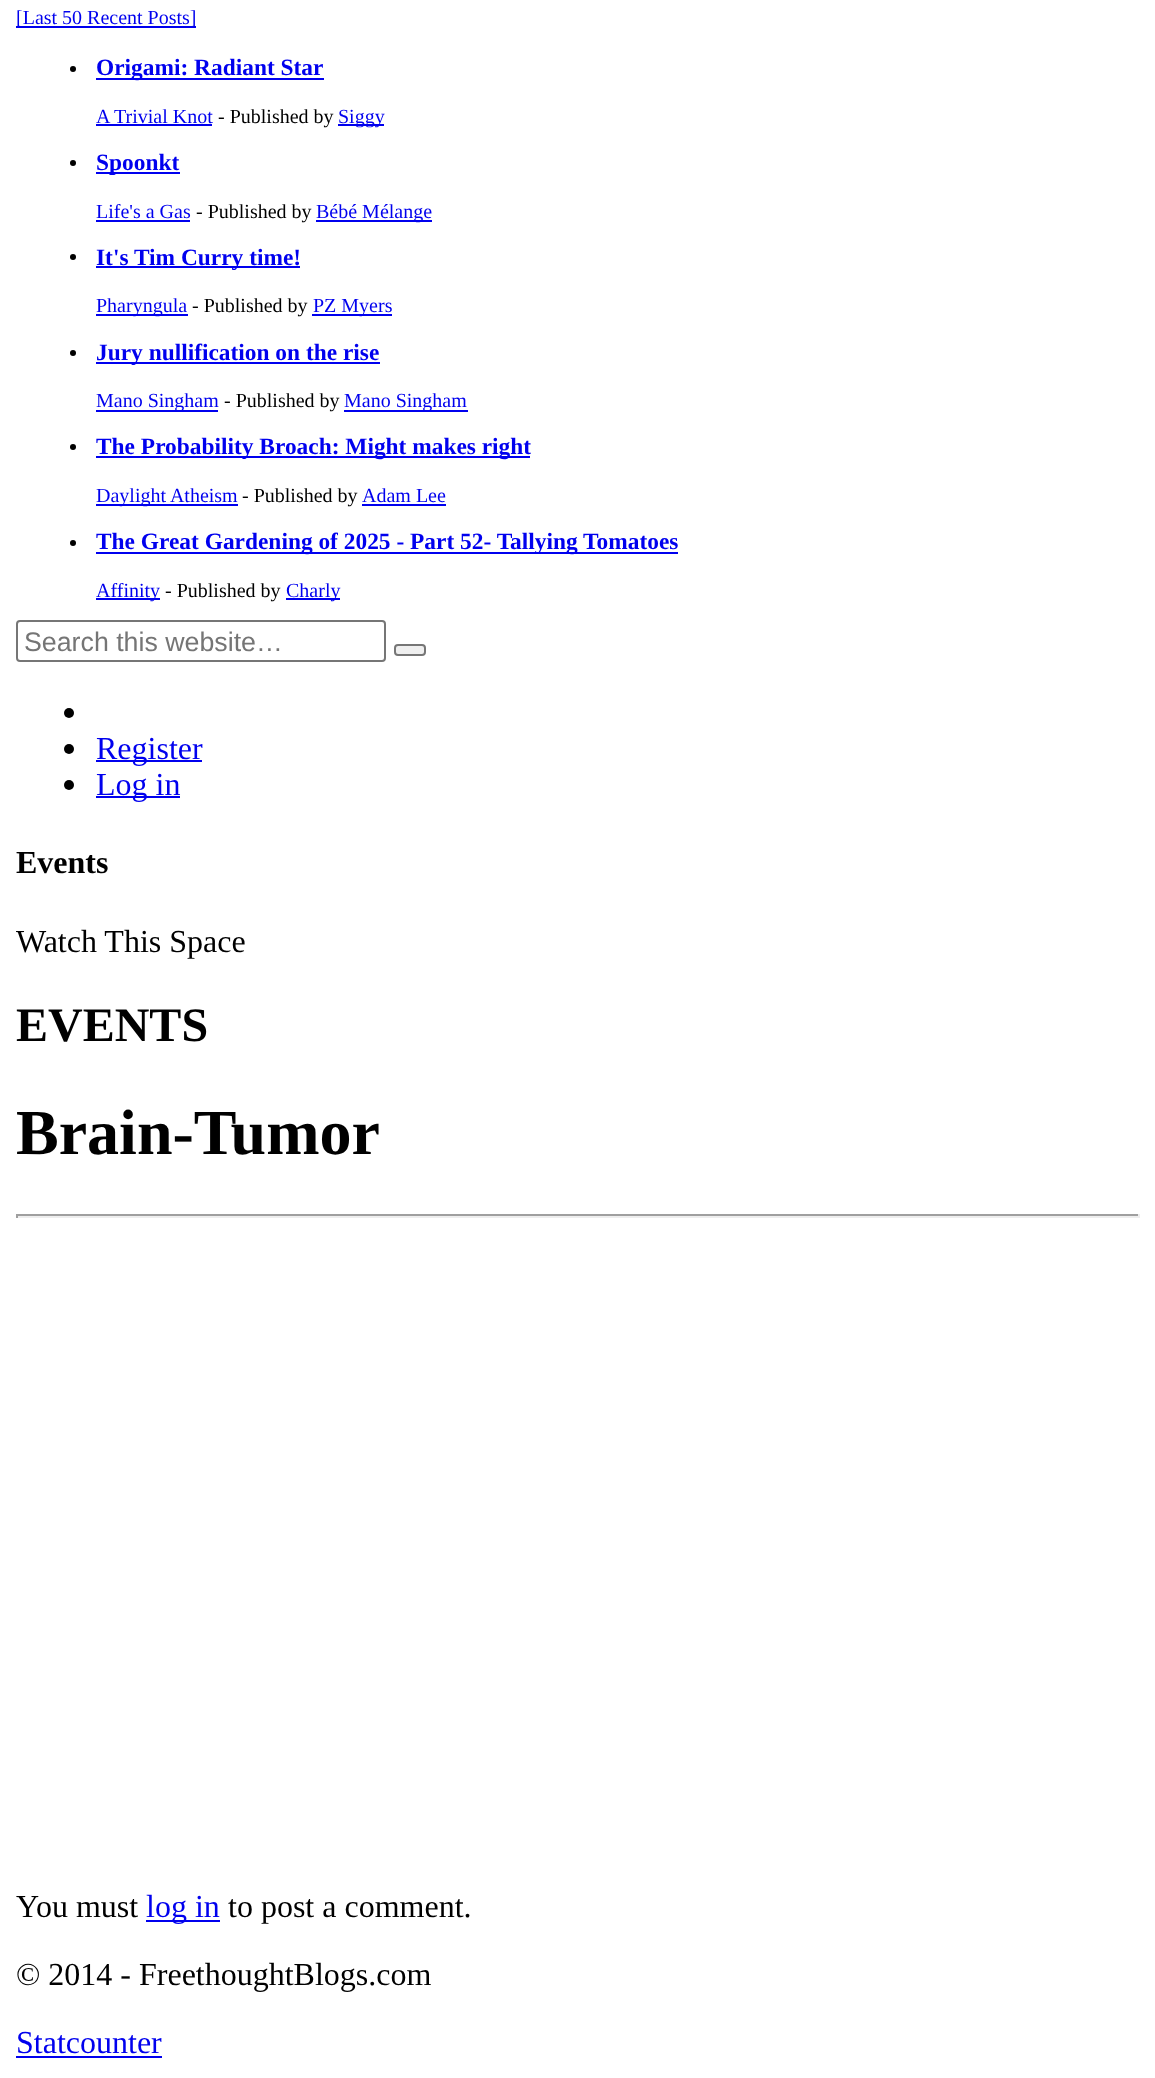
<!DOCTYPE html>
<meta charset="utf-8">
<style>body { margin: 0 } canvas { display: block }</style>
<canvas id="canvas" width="1155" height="2078"></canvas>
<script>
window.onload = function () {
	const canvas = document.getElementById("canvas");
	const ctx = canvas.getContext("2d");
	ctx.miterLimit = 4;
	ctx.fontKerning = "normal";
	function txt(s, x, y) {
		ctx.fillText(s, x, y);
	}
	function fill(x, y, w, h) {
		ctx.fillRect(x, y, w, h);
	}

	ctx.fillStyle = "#FFFFFF";
	fill(0, 0, 1155, 2078);
	ctx.fillStyle = "#0000EE";
	fill(16, 26, 180, 2);
	ctx.fillStyle = "#000000";
	ctx.beginPath();
	ctx.arc(73, 69, 3, 0, Math.PI * 2);
	ctx.fill();
	ctx.fillStyle = "#0000EE";
	fill(96, 78, 228, 2);
	fill(96, 124, 116, 2);
	fill(338, 124, 46, 2);
	ctx.fillStyle = "#000000";
	ctx.beginPath();
	ctx.arc(73, 163, 3, 0, Math.PI * 2);
	ctx.fill();
	ctx.fillStyle = "#0000EE";
	fill(96, 172, 84, 2);
	fill(96, 220, 94, 2);
	fill(316, 220, 116, 2);
	ctx.fillStyle = "#000000";
	ctx.beginPath();
	ctx.arc(73, 257, 3, 0, Math.PI * 2);
	ctx.fill();
	ctx.fillStyle = "#0000EE";
	fill(96, 266, 204, 2);
	fill(96, 314, 92, 2);
	fill(312, 314, 80, 2);
	ctx.fillStyle = "#000000";
	ctx.beginPath();
	ctx.arc(73, 353, 3, 0, Math.PI * 2);
	ctx.fill();
	ctx.fillStyle = "#0000EE";
	fill(96, 362, 284, 2);
	fill(96, 410, 122, 2);
	fill(344, 410, 124, 2);
	ctx.fillStyle = "#000000";
	ctx.beginPath();
	ctx.arc(73, 447, 3, 0, Math.PI * 2);
	ctx.fill();
	ctx.fillStyle = "#0000EE";
	fill(96, 456, 434, 2);
	fill(96, 504, 142, 2);
	fill(362, 504, 84, 2);
	ctx.fillStyle = "#000000";
	ctx.beginPath();
	ctx.arc(73, 543, 3, 0, Math.PI * 2);
	ctx.fill();
	ctx.fillStyle = "#0000EE";
	fill(96, 552, 582, 2);
	fill(96, 598, 64, 2);
	fill(286, 598, 54, 2);
	ctx.beginPath();
	ctx.roundRect(17, 621, 368, 40, 3);
	ctx.strokeStyle = "#767676";
	ctx.lineWidth = 2;
	ctx.stroke();
	ctx.fillStyle = "#EFEFEF";
	ctx.beginPath();
	ctx.roundRect(395, 645, 30, 10, 3);
	ctx.fill();
	ctx.stroke();
	ctx.fillStyle = "#000000";
	ctx.beginPath();
	ctx.arc(69, 713, 5, 0, Math.PI * 2);
	ctx.fill();
	ctx.beginPath();
	ctx.arc(69, 749, 5, 0, Math.PI * 2);
	ctx.fill();
	ctx.fillStyle = "#0000EE";
	fill(96, 760, 106, 2);
	ctx.fillStyle = "#000000";
	ctx.beginPath();
	ctx.arc(69, 785, 5, 0, Math.PI * 2);
	ctx.fill();
	ctx.fillStyle = "#0000EE";
	fill(96, 796, 84, 2);
	ctx.fillStyle = "#9F9F9F";
	fill(16, 1214, 1124, 2);
	ctx.fillStyle = "#EEEEEE";
	fill(1138, 1214, 2, 4);
	fill(16, 1216, 1124, 2);
	ctx.fillStyle = "#9F9F9F";
	fill(16, 1214, 2, 4);
	ctx.fillStyle = "#0000EE";
	fill(146, 1920, 74, 2);
	fill(16, 2056, 146, 2);
	ctx.font = "20px Liberation Serif";
	txt("[Last 50 Recent Posts]", 16, 24);
	ctx.font = "bold 23.4px Liberation Serif";
	txt("Origami: Radiant Star", 96, 75);
	ctx.font = "20px Liberation Serif";
	txt("A Trivial Knot", 96, 123);
	ctx.fillStyle = "#000000";
	txt("- Published by", 218, 123);
	ctx.fillStyle = "#0000EE";
	txt("Siggy", 338, 123);
	ctx.font = "bold 23.4px Liberation Serif";
	txt("Spoonkt", 96, 170);
	ctx.font = "20px Liberation Serif";
	txt("Life's a Gas", 96, 218);
	ctx.fillStyle = "#000000";
	txt("- Published by", 196, 218);
	ctx.fillStyle = "#0000EE";
	txt("Bébé Mélange", 316, 218);
	ctx.font = "bold 23.4px Liberation Serif";
	txt("It's Tim Curry time!", 96, 265);
	ctx.font = "20px Liberation Serif";
	txt("Pharyngula", 96, 312);
	ctx.fillStyle = "#000000";
	txt("- Published by", 192, 312);
	ctx.fillStyle = "#0000EE";
	txt("PZ Myers", 313, 312);
	ctx.font = "bold 23.4px Liberation Serif";
	txt("Jury nullification on the rise", 96, 360);
	ctx.font = "20px Liberation Serif";
	txt("Mano Singham", 96, 407);
	ctx.fillStyle = "#000000";
	txt("- Published by", 224, 407);
	ctx.fillStyle = "#0000EE";
	txt("Mano Singham", 344, 407);
	ctx.font = "bold 23.4px Liberation Serif";
	txt("The Probability Broach: Might makes right", 96, 454);
	ctx.font = "20px Liberation Serif";
	txt("Daylight Atheism", 96, 502);
	ctx.fillStyle = "#000000";
	txt("- Published by", 242, 502);
	ctx.fillStyle = "#0000EE";
	txt("Adam Lee", 362, 502);
	ctx.font = "bold 23.4px Liberation Serif";
	txt("The Great Gardening of 2025 - Part 52- Tallying Tomatoes", 96, 549);
	ctx.font = "20px Liberation Serif";
	txt("Affinity", 96, 597);
	ctx.fillStyle = "#000000";
	txt("- Published by", 165, 597);
	ctx.fillStyle = "#0000EE";
	txt("Charly", 286, 597);
	ctx.font = "26.75px Liberation Sans";
	ctx.fillStyle = "#757575";
	txt("Search this website…", 24, 651);
	ctx.font = "32px Liberation Serif";
	ctx.fillStyle = "#0000EE";
	txt("Register", 96, 759);
	txt("Log in", 96, 795);
	ctx.font = "bold 32px Liberation Serif";
	ctx.fillStyle = "#000000";
	txt("Events", 16, 873);
	ctx.font = "32px Liberation Serif";
	txt("Watch This Space", 16, 952);
	ctx.font = "bold 48px Liberation Serif";
	txt("EVENTS", 16, 1041);
	ctx.font = "bold 64px Liberation Serif";
	txt("Brain-Tumor", 16, 1154);
	ctx.font = "32px Liberation Serif";
	txt("You must", 16, 1917);
	ctx.fillStyle = "#0000EE";
	txt("log in", 146, 1917);
	ctx.fillStyle = "#000000";
	txt("to post a comment.", 228, 1917);
	txt("© 2014 - FreethoughtBlogs.com", 16, 1985);
	ctx.fillStyle = "#0000EE";
	txt("Statcounter", 16, 2053);
};
</script>
